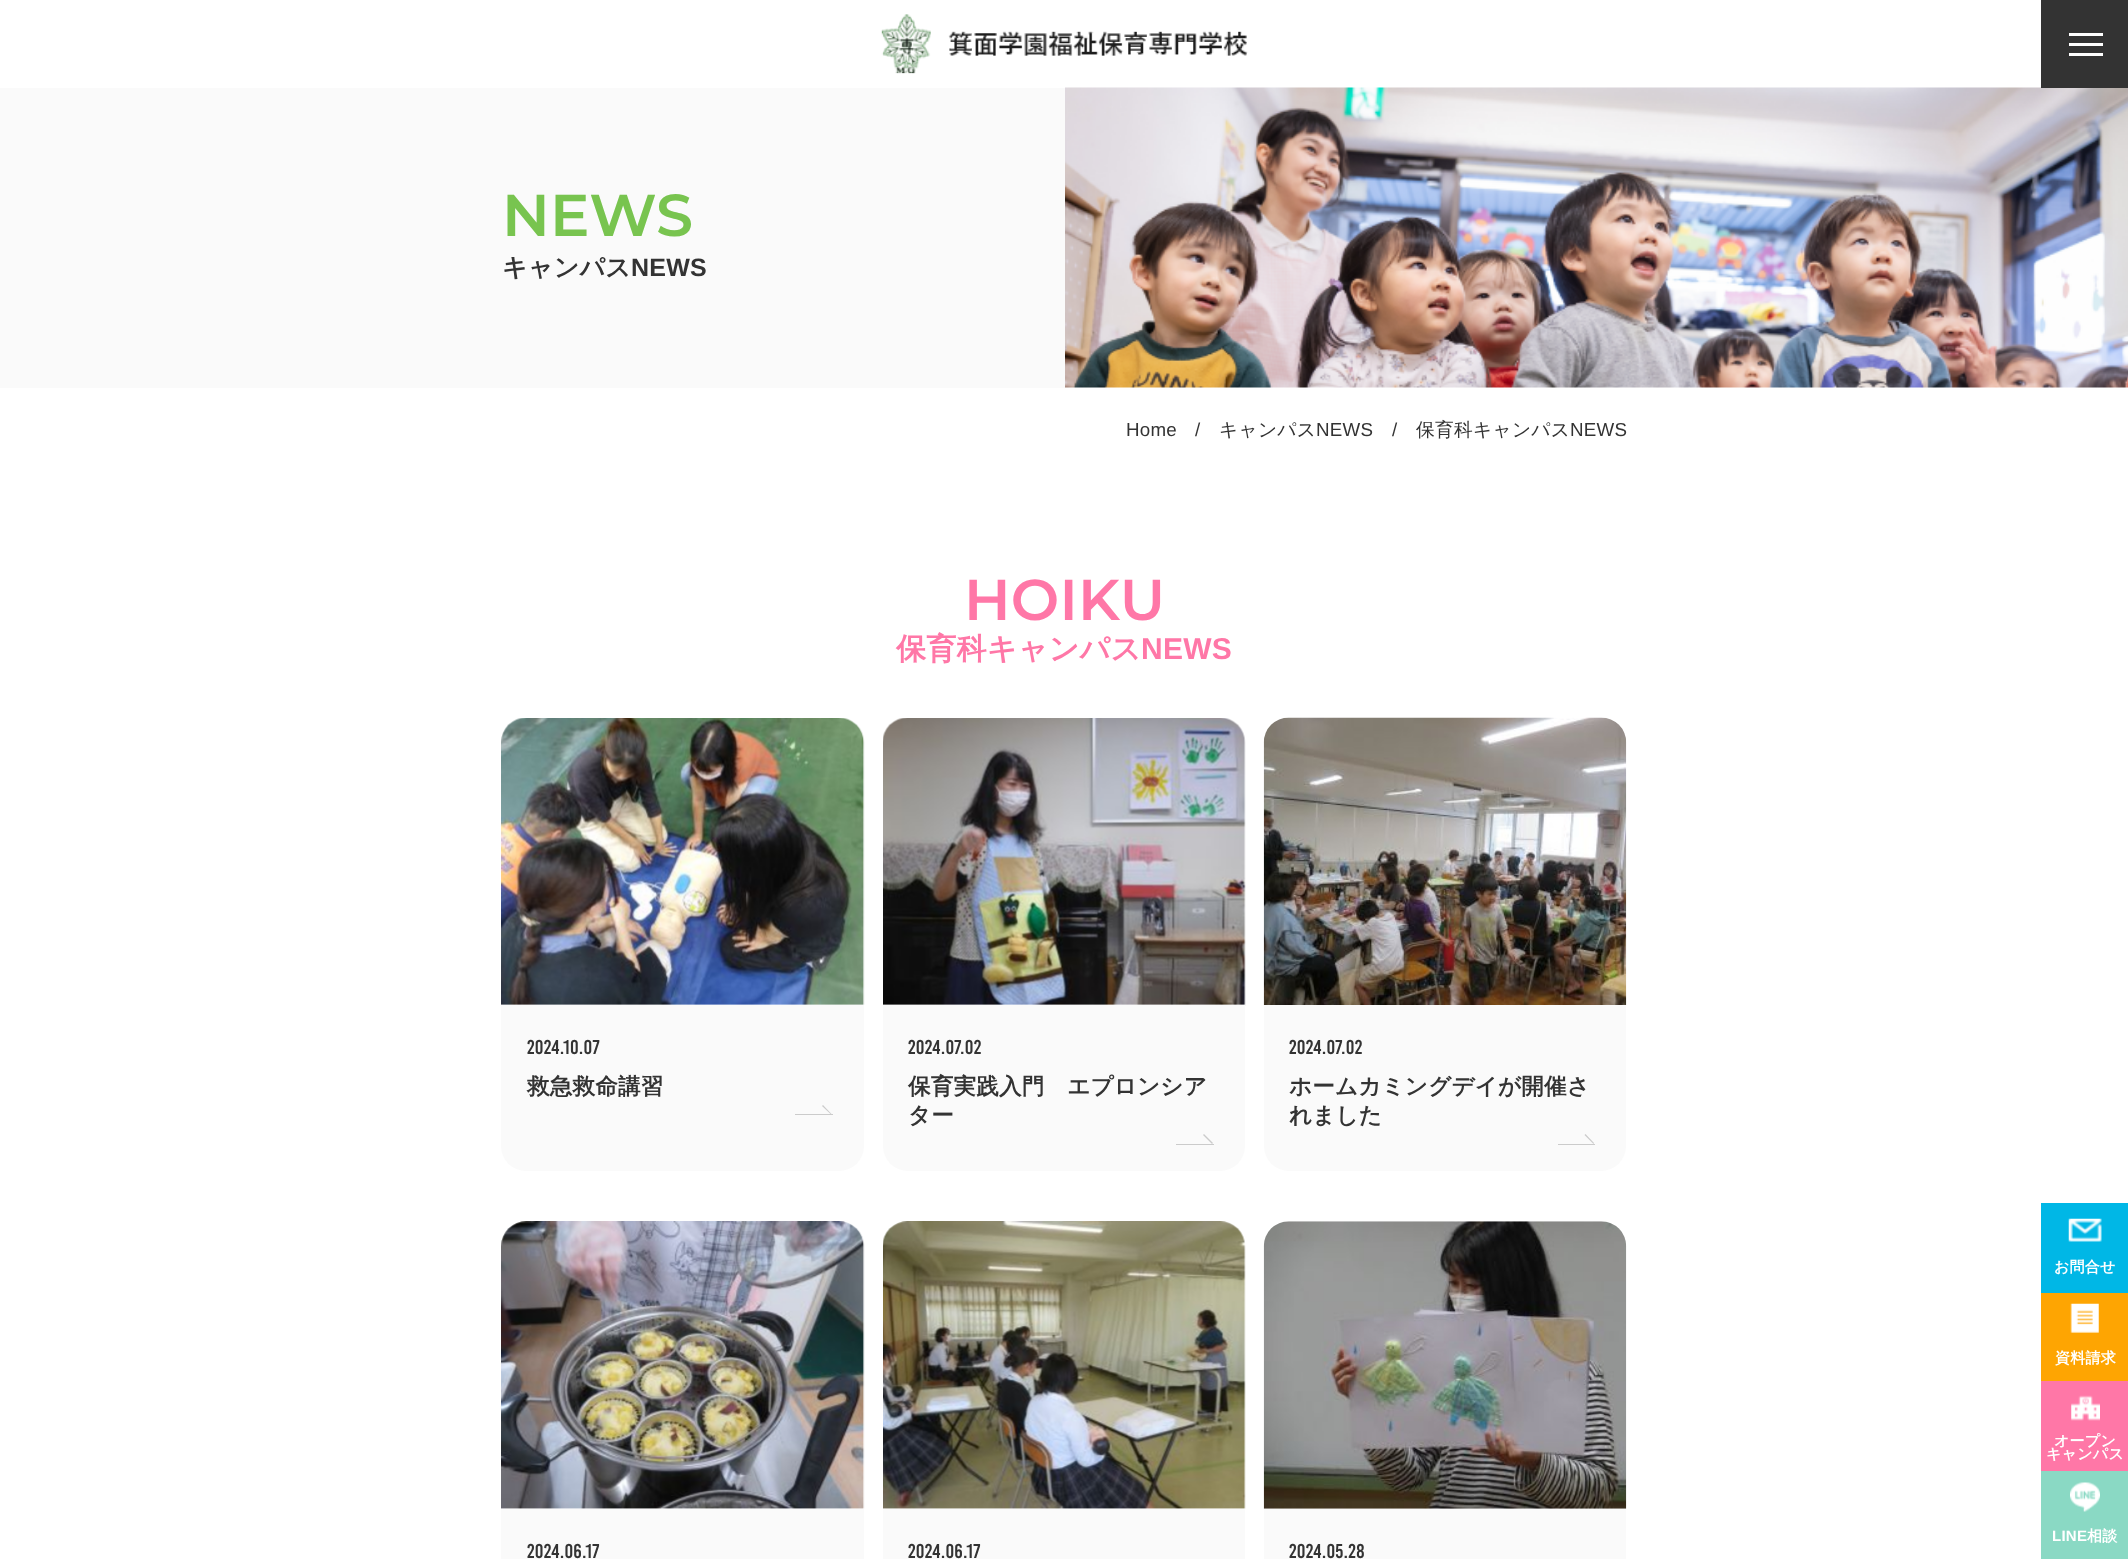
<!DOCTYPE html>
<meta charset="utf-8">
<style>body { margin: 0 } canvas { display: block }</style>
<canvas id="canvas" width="2128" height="1559"></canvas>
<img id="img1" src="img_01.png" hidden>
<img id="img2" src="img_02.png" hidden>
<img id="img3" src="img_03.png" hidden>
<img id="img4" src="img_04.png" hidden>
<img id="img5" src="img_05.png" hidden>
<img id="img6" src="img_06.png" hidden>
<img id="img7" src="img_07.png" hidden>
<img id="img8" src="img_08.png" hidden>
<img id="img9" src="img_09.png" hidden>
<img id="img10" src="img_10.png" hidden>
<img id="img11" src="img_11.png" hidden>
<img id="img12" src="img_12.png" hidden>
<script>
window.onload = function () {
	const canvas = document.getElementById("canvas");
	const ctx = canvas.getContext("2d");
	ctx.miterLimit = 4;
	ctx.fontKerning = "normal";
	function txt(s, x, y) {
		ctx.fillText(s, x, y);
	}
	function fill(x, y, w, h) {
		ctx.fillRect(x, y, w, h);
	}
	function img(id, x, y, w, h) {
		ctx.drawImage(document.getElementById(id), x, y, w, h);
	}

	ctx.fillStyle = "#FFFFFF";
	fill(0, 0, 2128, 1559);
	img("img1", 881, 14, 367, 60);
	img("img2", 1065, 87, 1063, 301);
	ctx.fillStyle = "#333333";
	fill(2041, 0, 87, 88);
	ctx.fillStyle = "#FFFFFF";
	fill(2069, 33, 34, 3);
	fill(2069, 43, 34, 3);
	fill(2069, 53, 34, 3);
	ctx.fillStyle = "#FAFAFA";
	fill(0, 88, 1065, 300);
	ctx.fillStyle = "#00B7E6";
	fill(2041, 1203, 87, 90);
	img("img3", 2068, 1218, 34, 24);
	ctx.fillStyle = "#FEA502";
	fill(2041, 1293, 87, 88);
	img("img4", 2070, 1303, 29, 30);
	ctx.fillStyle = "#FF77A7";
	fill(2041, 1381, 87, 90);
	img("img5", 2071, 1395, 29, 26);
	ctx.fillStyle = "#8AD9C4";
	fill(2041, 1471, 87, 88);
	img("img6", 2070, 1482, 30, 30);
	img("img7", 501, 718, 364, 287);
	ctx.fillStyle = "#FAFAFA";
	ctx.beginPath();
	ctx.roundRect(501, 1005, 363, 166, [0, 0, 25, 25]);
	ctx.fill();
	ctx.fillStyle = "#CBCBCB";
	fill(795, 1114, 38, 1);
	ctx.beginPath();
	ctx.moveTo(823, 1105);
	ctx.lineTo(831.5, 1114);
	ctx.lineTo(831, 1114.5);
	ctx.lineTo(822, 1106);
	ctx.closePath();
	ctx.fill();
	img("img8", 883, 718, 363, 288);
	ctx.fillStyle = "#FAFAFA";
	ctx.beginPath();
	ctx.roundRect(883, 1005, 362, 166, [0, 0, 25, 25]);
	ctx.fill();
	ctx.fillStyle = "#CBCBCB";
	fill(1176, 1144, 38, 1);
	ctx.beginPath();
	ctx.moveTo(1204, 1134);
	ctx.lineTo(1213, 1143);
	ctx.lineTo(1212, 1144);
	ctx.lineTo(1203, 1135);
	ctx.closePath();
	ctx.fill();
	img("img9", 1263, 717, 364, 288);
	ctx.fillStyle = "#FAFAFA";
	ctx.beginPath();
	ctx.roundRect(1264, 1005, 362, 166, [0, 0, 25, 25]);
	ctx.fill();
	ctx.fillStyle = "#CBCBCB";
	fill(1558, 1144, 37, 1);
	ctx.beginPath();
	ctx.moveTo(1585.5, 1134);
	ctx.lineTo(1594, 1143);
	ctx.lineTo(1593.5, 1144);
	ctx.lineTo(1584.5, 1135);
	ctx.closePath();
	ctx.fill();
	img("img10", 501, 1221, 364, 288);
	ctx.fillStyle = "#FAFAFA";
	fill(501, 1509, 363, 50);
	img("img11", 883, 1221, 363, 288);
	fill(883, 1509, 362, 50);
	img("img12", 1263, 1221, 364, 288);
	fill(1264, 1509, 362, 50);
	ctx.letterSpacing = "0.25px";
	ctx.font = "100 59px Montserrat";
	ctx.fillStyle = "#78C44F";
	txt("NEWS", 502, 236);
	ctx.font = "bold 25px WenQuanYi Zen Hei";
	ctx.fillStyle = "#333333";
	txt("キャンパス", 502, 276);
	ctx.font = "bold 25px Liberation Sans";
	txt("NEWS", 631, 276);
	ctx.font = "18.75px Liberation Sans";
	txt("Home", 1126, 436);
	txt("/", 1195, 436);
	ctx.font = "500 18.75px WenQuanYi Zen Hei";
	txt("キャンパス", 1219, 436);
	ctx.font = "18.75px Liberation Sans";
	txt("NEWS", 1316, 436);
	txt("/", 1392, 436);
	ctx.font = "500 18.75px WenQuanYi Zen Hei";
	txt("保育科キャンパス", 1416, 436);
	ctx.font = "18.75px Liberation Sans";
	txt("NEWS", 1570, 436);
	ctx.font = "bold 15px WenQuanYi Zen Hei";
	ctx.fillStyle = "#FFFFFF";
	txt("お問合せ", 2054, 1272);
	txt("資料請求", 2055, 1363);
	txt("オープン", 2054, 1446);
	txt("キャンパス", 2046, 1459);
	ctx.font = "bold 15px Liberation Sans";
	txt("LINE", 2052, 1541);
	ctx.font = "bold 15px WenQuanYi Zen Hei";
	txt("相談", 2087, 1541);
	ctx.font = "100 57.5px Montserrat";
	ctx.fillStyle = "#FF77A7";
	txt("HOIKU", 964, 620);
	ctx.font = "bold 30px WenQuanYi Zen Hei";
	txt("保育科キャンパス", 896, 659);
	ctx.font = "bold 30px Liberation Sans";
	txt("NEWS", 1141, 659);
	ctx.font = "20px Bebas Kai";
	ctx.fillStyle = "#333333";
	txt("2024.10.07", 527, 1054);
	ctx.font = "bold 22.5px WenQuanYi Zen Hei";
	txt("救急救命講習", 527, 1094);
	ctx.font = "20px Bebas Kai";
	txt("2024.07.02", 908, 1054);
	ctx.font = "bold 22.5px WenQuanYi Zen Hei";
	txt("保育実践入門　エプロンシア", 908, 1094);
	txt("ター", 908, 1123);
	ctx.font = "20px Bebas Kai";
	txt("2024.07.02", 1289, 1054);
	ctx.font = "bold 22.5px WenQuanYi Zen Hei";
	txt("ホームカミングデイが開催さ", 1289, 1094);
	txt("れました", 1289, 1123);
	ctx.font = "20px Bebas Kai";
	txt("2024.06.17", 527, 1558);
	txt("2024.06.17", 908, 1558);
	txt("2024.05.28", 1289, 1558);
};
</script>
